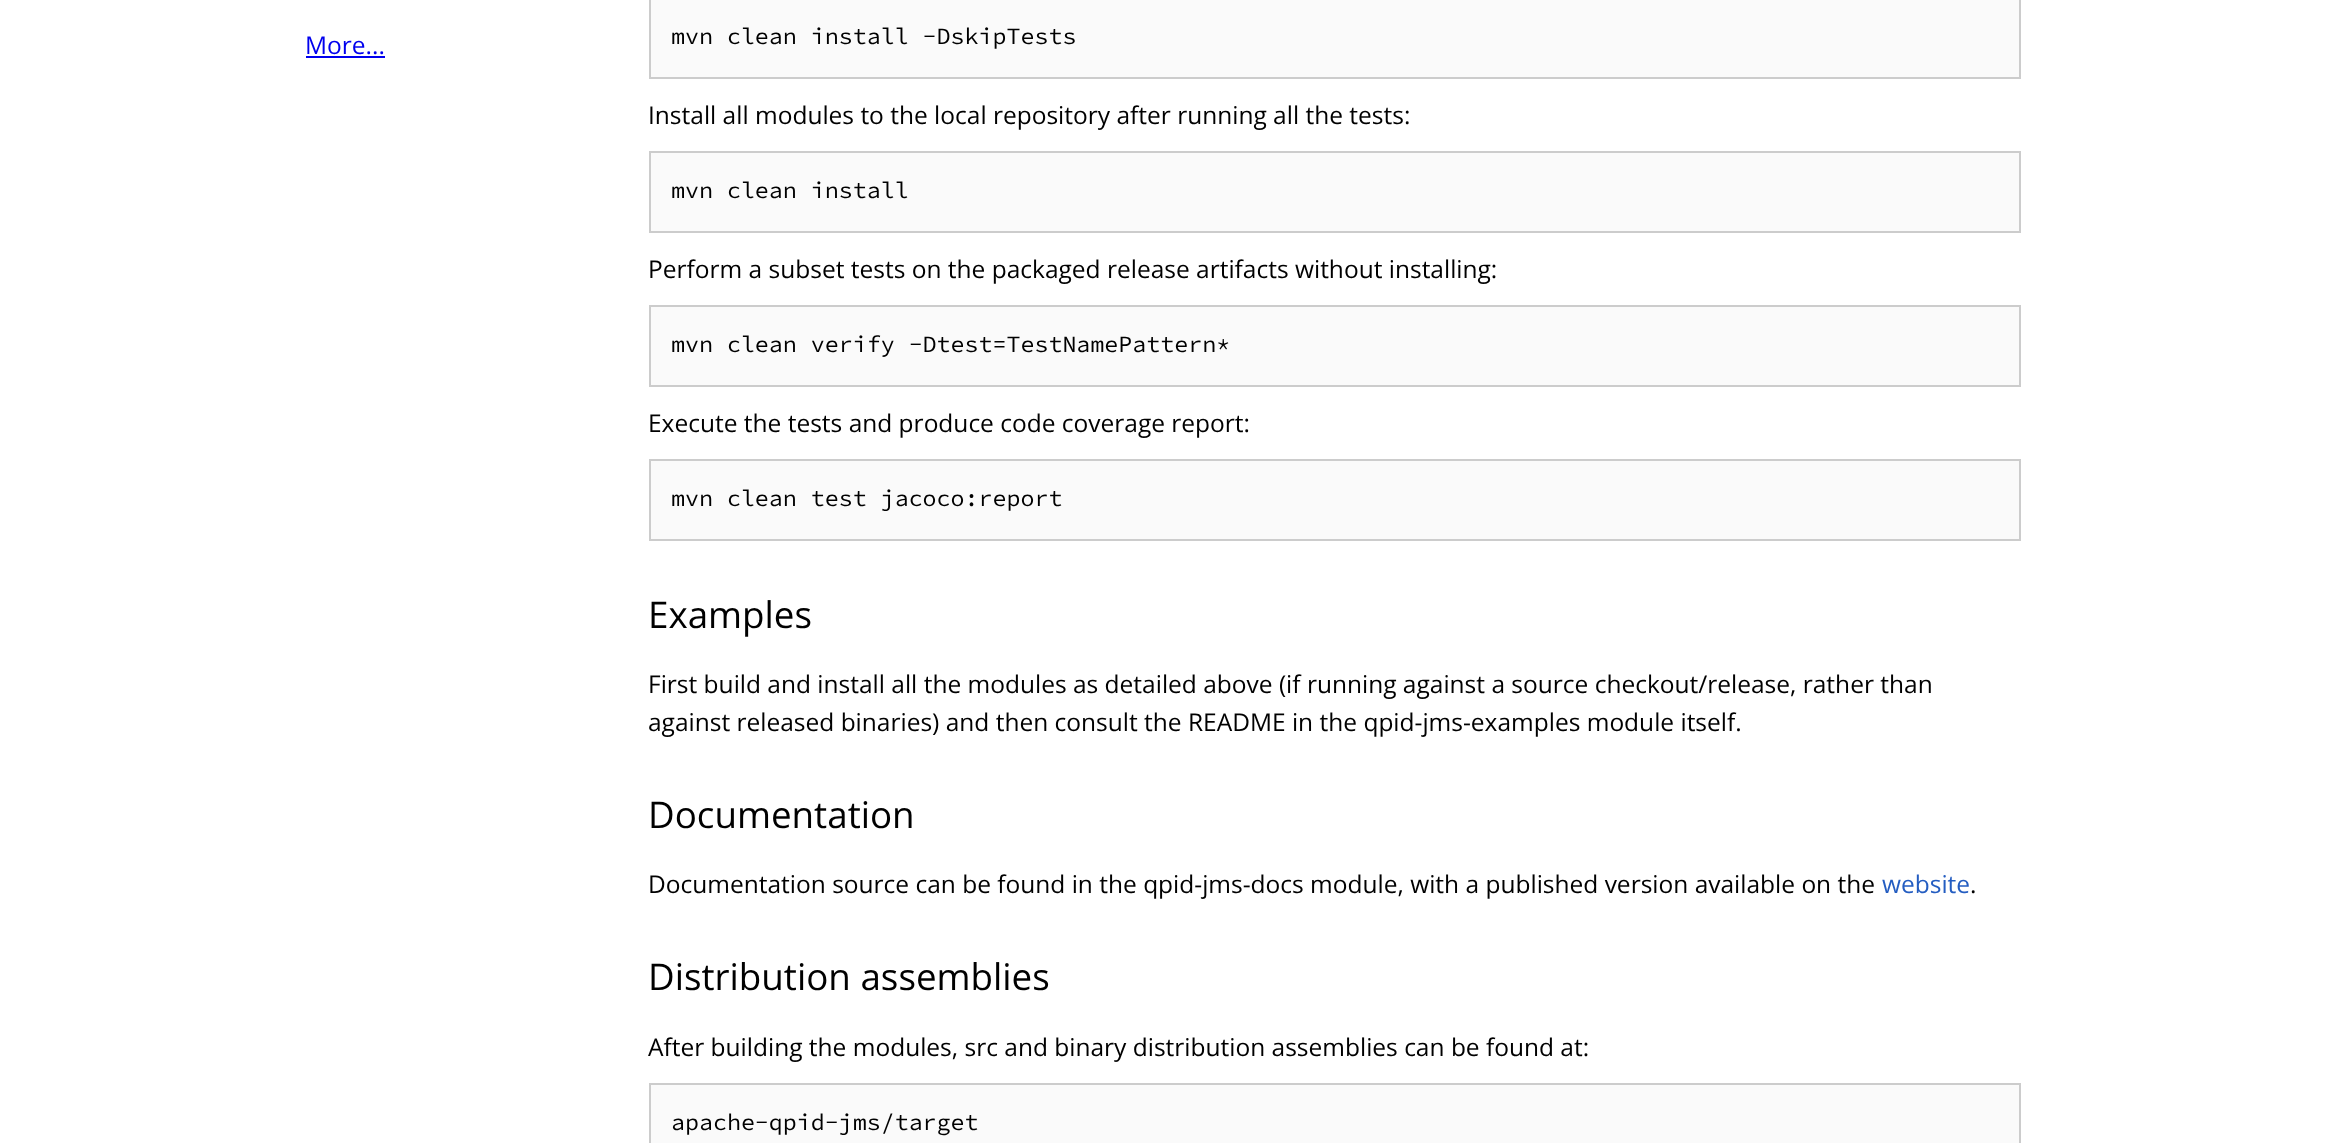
<!DOCTYPE html>
<meta charset="utf-8">
<style>body { margin: 0 } canvas { display: block }</style>
<canvas id="canvas" width="2325" height="1143"></canvas>
<script>
window.onload = function () {
	const canvas = document.getElementById("canvas");
	const ctx = canvas.getContext("2d");
	ctx.miterLimit = 4;
	ctx.fontKerning = "normal";
	function txt(s, x, y) {
		ctx.fillText(s, x, y);
	}
	function fill(x, y, w, h) {
		ctx.fillRect(x, y, w, h);
	}

	ctx.fillStyle = "#FFFFFF";
	fill(0, 0, 2325, 1143);
	ctx.fillStyle = "#0000EE";
	fill(306, 56, 79, 2);
	ctx.fillStyle = "#FAFAFA";
	ctx.beginPath();
	ctx.rect(650, -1, 1370, 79);
	ctx.fill();
	ctx.strokeStyle = "#CCCCCC";
	ctx.lineWidth = 2;
	ctx.stroke();
	ctx.beginPath();
	ctx.rect(650, 152, 1370, 80);
	ctx.fill();
	ctx.stroke();
	ctx.beginPath();
	ctx.rect(650, 306, 1370, 80);
	ctx.fill();
	ctx.stroke();
	ctx.beginPath();
	ctx.rect(650, 460, 1370, 80);
	ctx.fill();
	ctx.stroke();
	ctx.beginPath();
	ctx.rect(650, 1084, 1370, 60);
	ctx.fill();
	ctx.stroke();
	ctx.font = "24.5px Open Sans";
	ctx.fillStyle = "#0000EE";
	txt("More...", 305, 54);
	ctx.font = "200 23.3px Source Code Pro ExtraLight";
	ctx.fillStyle = "#000000";
	txt("mvn clean install -DskipTests", 671, 44);
	ctx.font = "24.5px Open Sans";
	txt("Install all modules to the local repository after running all the tests:", 648, 124);
	ctx.font = "200 23.3px Source Code Pro ExtraLight";
	txt("mvn clean install", 671, 198);
	ctx.font = "24.5px Open Sans";
	txt("Perform a subset tests on the packaged release artifacts without installing:", 648, 278);
	ctx.font = "200 23.3px Source Code Pro ExtraLight";
	txt("mvn clean verify -Dtest=TestNamePattern*", 671, 352);
	ctx.font = "24.5px Open Sans";
	txt("Execute the tests and produce code coverage report:", 648, 432);
	ctx.font = "200 23.3px Source Code Pro ExtraLight";
	txt("mvn clean test jacoco:report", 671, 506);
	ctx.font = "36.75px Open Sans";
	txt("Examples", 648, 628);
	ctx.font = "24.5px Open Sans";
	txt("First build and install all the modules as detailed above (if running against a source checkout/release, rather than", 648, 693);
	txt("against released binaries) and then consult the README in the qpid-jms-examples module itself.", 648, 731);
	ctx.font = "36.75px Open Sans";
	txt("Documentation", 648, 828);
	ctx.font = "24.5px Open Sans";
	txt("Documentation source can be found in the qpid-jms-docs module, with a published version available on the", 648, 893);
	ctx.fillStyle = "#245DC1";
	txt("website", 1882, 893);
	ctx.fillStyle = "#000000";
	txt(".", 1970, 893);
	ctx.font = "36.75px Open Sans";
	txt("Distribution assemblies", 648, 990);
	ctx.font = "24.5px Open Sans";
	txt("After building the modules, src and binary distribution assemblies can be found at:", 648, 1056);
	ctx.font = "200 23.3px Source Code Pro ExtraLight";
	txt("apache-qpid-jms/target", 671, 1130);
};
</script>
